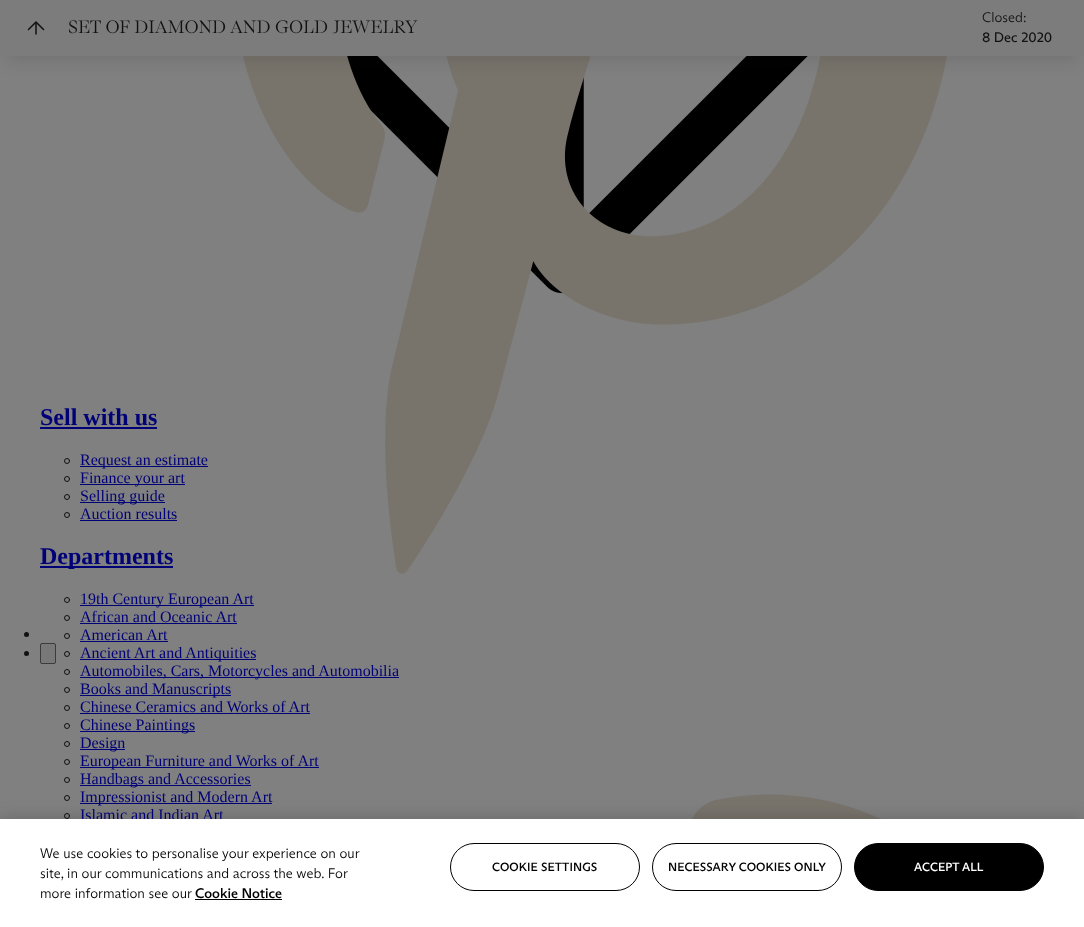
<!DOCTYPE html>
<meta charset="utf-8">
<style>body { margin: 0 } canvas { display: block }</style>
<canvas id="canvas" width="1084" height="927"></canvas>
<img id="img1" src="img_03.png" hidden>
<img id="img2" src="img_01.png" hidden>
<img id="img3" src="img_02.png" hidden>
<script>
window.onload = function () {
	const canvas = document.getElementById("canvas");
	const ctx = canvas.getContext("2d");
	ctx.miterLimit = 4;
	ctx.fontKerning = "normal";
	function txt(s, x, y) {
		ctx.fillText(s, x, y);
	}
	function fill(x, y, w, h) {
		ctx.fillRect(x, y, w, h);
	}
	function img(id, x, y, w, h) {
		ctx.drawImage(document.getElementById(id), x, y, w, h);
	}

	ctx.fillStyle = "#808080";
	fill(0, 0, 1084, 927);
	img("img1", 347, 56, 461, 238);
	img("img2", 243, 56, 704, 518);
	ctx.fillStyle = "rgba(17, 17, 17, 0.11)";
	ctx.filter = "blur(7.5px)";
	ctx.beginPath();
	ctx.rect(6, 18, 1072, 44);
	ctx.fill();
	ctx.filter = "none";
	ctx.fillStyle = "#7C7C7C";
	fill(0, 0, 1084, 56);
	ctx.beginPath();
	ctx.moveTo(43.5, 29.5);
	ctx.lineTo(36, 22);
	ctx.lineTo(28.5, 29.5);
	ctx.strokeStyle = "#111111";
	ctx.lineWidth = 1.5;
	ctx.lineCap = "round";
	ctx.lineJoin = "round";
	ctx.stroke();
	ctx.beginPath();
	ctx.moveTo(36, 23.5);
	ctx.lineTo(36, 34);
	ctx.lineJoin = "miter";
	ctx.stroke();
	ctx.fillStyle = "#111111";
	ctx.beginPath();
	ctx.arc(26.5, 634.5, 2.5, 0, Math.PI * 2);
	ctx.fill();
	ctx.beginPath();
	ctx.arc(26.5, 653.5, 2.5, 0, Math.PI * 2);
	ctx.fill();
	ctx.fillStyle = "#787878";
	ctx.beginPath();
	ctx.roundRect(40.5, 643.5, 15, 20, 1.5);
	ctx.fill();
	ctx.strokeStyle = "#3B3B3B";
	ctx.lineWidth = 1;
	ctx.stroke();
	img("img3", 692, 794, 189, 25);
	ctx.fillStyle = "#000077";
	fill(40, 427, 117, 2);
	ctx.beginPath();
	ctx.arc(67, 461, 2.5, 0, Math.PI * 2);
	ctx.strokeStyle = "#111111";
	ctx.stroke();
	fill(80, 466, 128, 1);
	ctx.beginPath();
	ctx.arc(67, 479, 2.5, 0, Math.PI * 2);
	ctx.stroke();
	fill(80, 484, 105, 1);
	ctx.beginPath();
	ctx.arc(67, 497, 2.5, 0, Math.PI * 2);
	ctx.stroke();
	fill(80, 502, 85, 1);
	ctx.beginPath();
	ctx.arc(67, 515, 2.5, 0, Math.PI * 2);
	ctx.stroke();
	fill(80, 520, 97, 1);
	fill(40, 566, 133, 2);
	ctx.beginPath();
	ctx.arc(67, 600, 2.5, 0, Math.PI * 2);
	ctx.stroke();
	fill(80, 605, 174, 1);
	ctx.beginPath();
	ctx.arc(67, 618, 2.5, 0, Math.PI * 2);
	ctx.stroke();
	fill(80, 623, 157, 1);
	ctx.beginPath();
	ctx.arc(67, 636, 2.5, 0, Math.PI * 2);
	ctx.stroke();
	fill(80, 641, 88, 1);
	ctx.beginPath();
	ctx.arc(67, 654, 2.5, 0, Math.PI * 2);
	ctx.stroke();
	fill(80, 659, 176, 1);
	ctx.beginPath();
	ctx.arc(67, 672, 2.5, 0, Math.PI * 2);
	ctx.stroke();
	fill(80, 677, 319, 1);
	ctx.beginPath();
	ctx.arc(67, 690, 2.5, 0, Math.PI * 2);
	ctx.stroke();
	fill(80, 695, 151, 1);
	ctx.beginPath();
	ctx.arc(67, 708, 2.5, 0, Math.PI * 2);
	ctx.stroke();
	fill(80, 713, 230, 1);
	ctx.beginPath();
	ctx.arc(67, 726, 2.5, 0, Math.PI * 2);
	ctx.stroke();
	fill(80, 731, 115, 1);
	ctx.beginPath();
	ctx.arc(67, 744, 2.5, 0, Math.PI * 2);
	ctx.stroke();
	fill(80, 749, 45, 1);
	ctx.beginPath();
	ctx.arc(67, 762, 2.5, 0, Math.PI * 2);
	ctx.stroke();
	fill(80, 767, 239, 1);
	ctx.beginPath();
	ctx.arc(67, 780, 2.5, 0, Math.PI * 2);
	ctx.stroke();
	fill(80, 785, 171, 1);
	ctx.beginPath();
	ctx.arc(67, 798, 2.5, 0, Math.PI * 2);
	ctx.stroke();
	fill(80, 803, 192, 1);
	ctx.beginPath();
	ctx.arc(67, 816, 2.5, 0, Math.PI * 2);
	ctx.stroke();
	ctx.fillStyle = "rgba(0, 0, 0, 0.2)";
	ctx.filter = "blur(9px)";
	ctx.beginPath();
	ctx.rect(0, 819, 1084, 108);
	ctx.fill();
	ctx.filter = "none";
	ctx.font = "300 18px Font";
	ctx.fillStyle = "#111111";
	txt("SET OF DIAMOND AND GOLD JEWELRY", 68, 33);
	ctx.font = "300 14px 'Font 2'";
	txt("Closed:", 982, 22);
	ctx.font = "14px Font";
	txt("8 Dec 2020", 982, 42);
	ctx.font = "bold 24px Liberation Serif";
	ctx.fillStyle = "#000077";
	txt("Sell with us", 40, 425);
	ctx.font = "16px Liberation Serif";
	txt("Request an estimate", 80, 465);
	txt("Finance your art", 80, 483);
	txt("Selling guide", 80, 501);
	txt("Auction results", 80, 519);
	ctx.font = "bold 24px Liberation Serif";
	txt("Departments", 40, 564);
	ctx.font = "16px Liberation Serif";
	txt("19th Century European Art", 80, 604);
	txt("African and Oceanic Art", 80, 622);
	txt("American Art", 80, 640);
	txt("Ancient Art and Antiquities", 80, 658);
	txt("Automobiles, Cars, Motorcycles and Automobilia", 80, 676);
	txt("Books and Manuscripts", 80, 694);
	txt("Chinese Ceramics and Works of Art", 80, 712);
	txt("Chinese Paintings", 80, 730);
	txt("Design", 80, 748);
	txt("European Furniture and Works of Art", 80, 766);
	txt("Handbags and Accessories", 80, 784);
	txt("Impressionist and Modern Art", 80, 802);
	txt("Islamic and Indian Art", 80, 820);
	ctx.fillStyle = "#FFFFFF";
	fill(0, 819, 1084, 108);
	ctx.font = "300 14px 'Font 2'";
	ctx.fillStyle = "#000000";
	txt("We use cookies to personalise your experience on our", 40, 858);
	txt("site, in our communications and across the web. For", 40, 878);
	txt("more information see our", 40, 898);
	ctx.font = "500 14px Font";
	txt("Cookie Notice", 195, 898);
	fill(195, 899, 87, 1);
	ctx.beginPath();
	ctx.roundRect(450.5, 843.5, 189, 47, 23.5);
	ctx.strokeStyle = "#000000";
	ctx.stroke();
	ctx.letterSpacing = "0.1px";
	ctx.font = "500 12px Font";
	txt("COOKIE SETTINGS", 492, 871);
	ctx.beginPath();
	ctx.roundRect(652.5, 843.5, 189, 47, 23.5);
	ctx.stroke();
	txt("NECESSARY COOKIES ONLY", 668, 871);
	ctx.beginPath();
	ctx.roundRect(854.5, 843.5, 189, 47, 23.5);
	ctx.fill();
	ctx.stroke();
	ctx.fillStyle = "#FFFFFF";
	txt("ACCEPT ALL", 914, 871);
};
</script>
